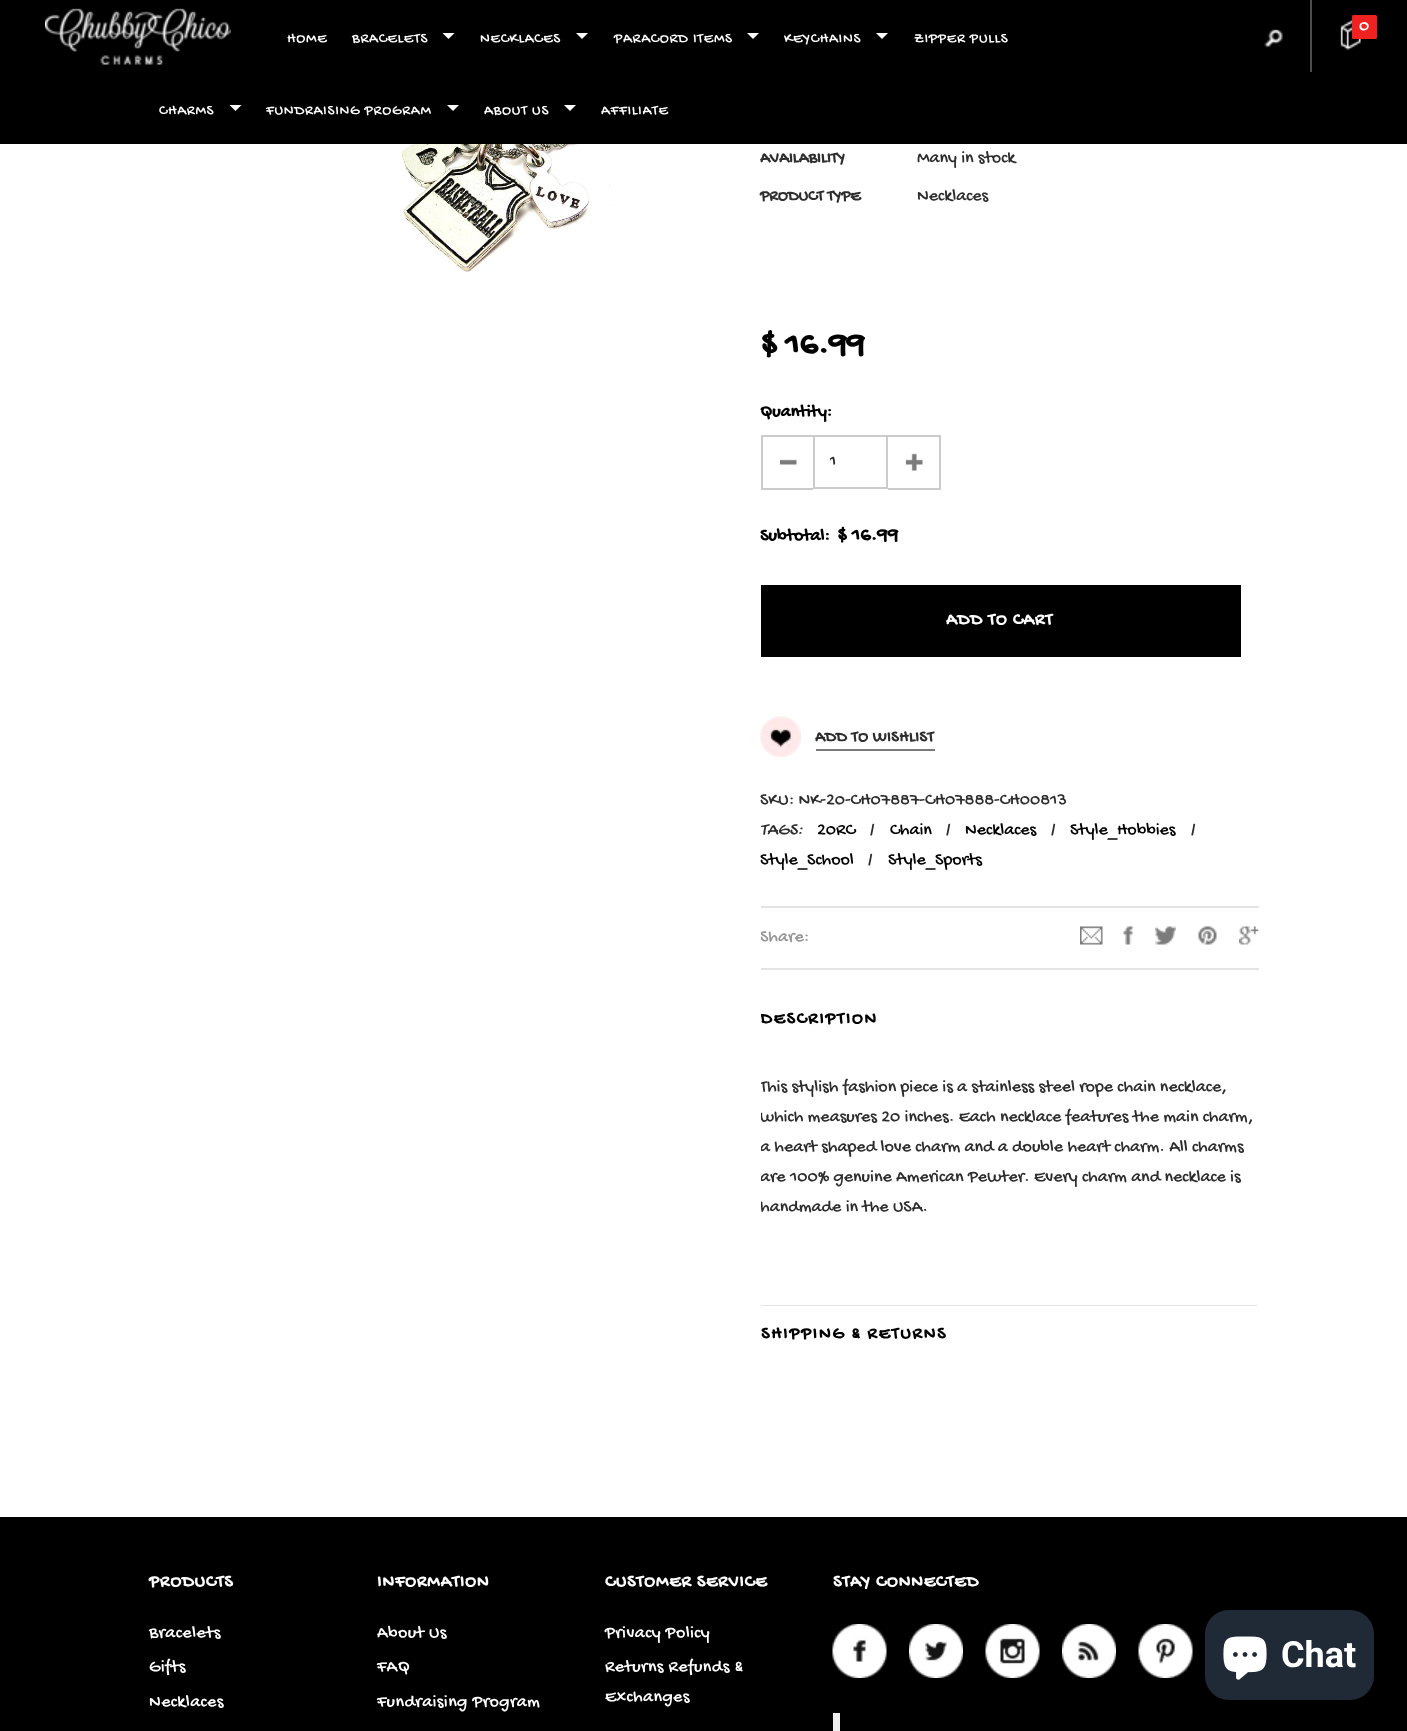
<!DOCTYPE html>
<meta charset="utf-8">
<style>body { margin: 0 } canvas { display: block }</style>
<canvas id="canvas" width="1407" height="1731"></canvas>
<img id="img1" src="img_01.png" hidden>
<img id="img2" src="img_02.png" hidden>
<img id="img3" src="img_03.png" hidden>
<img id="img4" src="img_04.png" hidden>
<img id="img5" src="img_05.png" hidden>
<img id="img6" src="img_06.png" hidden>
<img id="img7" src="img_07.png" hidden>
<img id="img8" src="img_08.png" hidden>
<img id="img9" src="img_09.png" hidden>
<img id="img10" src="img_10.png" hidden>
<img id="img11" src="img_11.png" hidden>
<img id="img12" src="img_12.png" hidden>
<img id="img13" src="img_13.png" hidden>
<img id="img14" src="img_14.png" hidden>
<img id="img15" src="img_15.png" hidden>
<img id="img16" src="img_16.png" hidden>
<img id="img17" src="img_17.png" hidden>
<img id="img18" src="img_18.png" hidden>
<script>
window.onload = function () {
	const canvas = document.getElementById("canvas");
	const ctx = canvas.getContext("2d");
	ctx.miterLimit = 4;
	ctx.fontKerning = "normal";
	function txt(s, x, y) {
		ctx.fillText(s, x, y);
	}
	function fill(x, y, w, h) {
		ctx.fillRect(x, y, w, h);
	}
	function round(x, y, w, h, r) {
		ctx.beginPath();
		ctx.roundRect(x, y, w, h, r);
		ctx.fill();
	}
	function img(id, x, y, w, h) {
		ctx.drawImage(document.getElementById(id), x, y, w, h);
	}

	ctx.fillStyle = "#FFFFFF";
	fill(0, 0, 1407, 1731);
	ctx.fillStyle = "#000000";
	fill(0, 0, 1407, 144);
	img("img1", 1340, 19, 21, 31);
	ctx.fillStyle = "#4D4D4D";
	fill(1310, 0, 2, 72);
	ctx.fillStyle = "#F02121";
	round(1352, 15, 25, 24, 1.5);
	img("img2", 1264, 29, 19, 19);
	img("img3", 45, 8, 186, 57);
	ctx.fillStyle = "#FFFFFF";
	ctx.beginPath();
	ctx.moveTo(442.5, 33);
	ctx.lineTo(454.5, 33);
	ctx.lineTo(448.5, 39);
	ctx.closePath();
	ctx.fill();
	ctx.beginPath();
	ctx.moveTo(576, 33);
	ctx.lineTo(588, 33);
	ctx.lineTo(582, 39);
	ctx.closePath();
	ctx.fill();
	ctx.beginPath();
	ctx.moveTo(747, 33);
	ctx.lineTo(759, 33);
	ctx.lineTo(753, 39);
	ctx.closePath();
	ctx.fill();
	ctx.beginPath();
	ctx.moveTo(876, 33);
	ctx.lineTo(888, 33);
	ctx.lineTo(882, 39);
	ctx.closePath();
	ctx.fill();
	ctx.beginPath();
	ctx.moveTo(229.5, 105);
	ctx.lineTo(241.5, 105);
	ctx.lineTo(235.5, 111);
	ctx.closePath();
	ctx.fill();
	ctx.beginPath();
	ctx.moveTo(447, 105);
	ctx.lineTo(459, 105);
	ctx.lineTo(453, 111);
	ctx.closePath();
	ctx.fill();
	ctx.beginPath();
	ctx.moveTo(564, 105);
	ctx.lineTo(576, 105);
	ctx.lineTo(570, 111);
	ctx.closePath();
	ctx.fill();
	img("img4", 401, 144, 300, 130);
	img("img5", 780, 459, 17, 6);
	ctx.fillStyle = "#CBCBCB";
	fill(761, 435, 52, 2);
	fill(761, 488, 52, 2);
	fill(761, 435, 2, 54);
	ctx.strokeStyle = "#CBCBCB";
	ctx.lineWidth = 2;
	ctx.strokeRect(814, 436, 73, 52);
	img("img6", 906, 453, 17, 18);
	fill(888, 435, 53, 2);
	fill(939, 435, 2, 54);
	fill(888, 488, 53, 2);
	ctx.fillStyle = "#000000";
	fill(761, 585, 480, 72);
	img("img7", 760, 716, 41, 41);
	ctx.fillStyle = "#7B7B7B";
	fill(816, 749, 119, 2);
	ctx.fillStyle = "#E3E3E3";
	fill(761, 906, 498, 2);
	fill(761, 968, 498, 2);
	img("img8", 1080, 926, 23, 19);
	img("img9", 1123, 926, 10, 19);
	img("img10", 1155, 926, 21, 19);
	img("img11", 1198, 926, 19, 19);
	img("img12", 1239, 926, 20, 19);
	ctx.beginPath();
	ctx.moveTo(760, 1305);
	ctx.lineTo(1258, 1305);
	ctx.lineTo(1257, 1306);
	ctx.lineTo(762, 1306);
	ctx.closePath();
	ctx.fill();
	ctx.fillStyle = "#000000";
	fill(0, 1517, 1407, 214);
	img("img13", 832, 1624, 55, 54);
	img("img14", 909, 1624, 54, 54);
	img("img15", 985, 1624, 55, 54);
	img("img16", 1062, 1624, 54, 54);
	img("img17", 1138, 1624, 55, 54);
	ctx.fillStyle = "#EEEEEE";
	fill(833, 1713, 7, 18);
	ctx.fillStyle = "#202A36";
	round(1205, 1610, 169, 90, 24);
	img("img18", 1223, 1636, 44, 44);
	ctx.letterSpacing = "0.4px";
	ctx.font = "18px Gochi Hand";
	ctx.fillStyle = "#FFFFFF";
	txt("0", 1359, 30);
	ctx.letterSpacing = "0.75px";
	ctx.font = "15px Gochi Hand";
	txt("HOME", 287, 42);
	txt("BRACELETS", 352, 42);
	txt("NECKLACES", 480, 42);
	txt("PARACORD ITEMS", 614, 42);
	txt("KEYCHAINS", 784, 42);
	txt("ZIPPER PULLS", 914, 42);
	txt("CHARMS", 159, 114);
	txt("FUNDRAISING PROGRAM", 266, 114);
	txt("ABOUT US", 484, 114);
	txt("AFFILIATE", 601, 114);
	ctx.letterSpacing = "0px";
	ctx.font = "bold 16.5px Gochi Hand";
	ctx.fillStyle = "#2D2D2D";
	txt("AVAILABILITY", 760, 162);
	ctx.font = "18px Gochi Hand";
	txt("Many in stock", 917, 162);
	ctx.font = "bold 16.5px Gochi Hand";
	txt("PRODUCT TYPE", 760, 200);
	ctx.font = "18px Gochi Hand";
	txt("Necklaces", 917, 200);
	ctx.font = "bold 36px Gochi Hand";
	ctx.fillStyle = "#000000";
	txt("$ 16.99", 760, 353);
	ctx.font = "bold 18px Gochi Hand";
	txt("Quantity:", 760, 416);
	ctx.save();
	ctx.beginPath();
	ctx.rect(830, 452, 42, 21);
	ctx.clip();
	ctx.font = "18px Gochi Hand";
	ctx.fillStyle = "#2D2D2D";
	txt("1", 829, 465);
	ctx.restore();
	txt("Subtotal:", 760, 540);
	ctx.font = "bold 21px Gochi Hand";
	txt("$ 16.99", 837, 540);
	ctx.letterSpacing = "0.9px";
	ctx.font = "bold 18px Gochi Hand";
	ctx.fillStyle = "#FFFFFF";
	txt("ADD TO CART", 946, 624);
	ctx.letterSpacing = "0.3px";
	ctx.font = "bold 16.5px Gochi Hand";
	ctx.fillStyle = "#2D2D2D";
	txt("ADD TO WISHLIST", 815, 741);
	ctx.letterSpacing = "0px";
	ctx.font = "18px Gochi Hand";
	txt("SKU: NK-20-CH07887-CH07888-CH00813", 760, 804);
	ctx.font = "italic 18px Gochi Hand";
	txt("TAGS:", 760, 834);
	ctx.font = "18px Gochi Hand";
	ctx.fillStyle = "#000000";
	txt("20RC", 817, 834);
	ctx.fillStyle = "#2D2D2D";
	txt("/", 870, 834);
	ctx.fillStyle = "#000000";
	txt("Chain", 890, 834);
	ctx.fillStyle = "#2D2D2D";
	txt("/", 946, 834);
	ctx.fillStyle = "#000000";
	txt("Necklaces", 965, 834);
	ctx.fillStyle = "#2D2D2D";
	txt("/", 1051, 834);
	ctx.fillStyle = "#000000";
	txt("Style_Hobbies", 1070, 834);
	ctx.fillStyle = "#2D2D2D";
	txt("/", 1191, 834);
	ctx.fillStyle = "#000000";
	txt("Style_School", 760, 864);
	ctx.fillStyle = "#2D2D2D";
	txt("/", 868, 864);
	ctx.fillStyle = "#000000";
	txt("Style_Sports", 888, 864);
	ctx.save();
	ctx.beginPath();
	ctx.rect(761, 908, 498, 60);
	ctx.clip();
	ctx.fillStyle = "#969696";
	txt("Share:", 760, 941);
	ctx.restore();
	ctx.save();
	ctx.beginPath();
	ctx.rect(761, 992, 498, 313);
	ctx.clip();
	ctx.letterSpacing = "1.75px";
	ctx.font = "bold 18px Gochi Hand";
	txt("DESCRIPTION", 760, 1023);
	ctx.letterSpacing = "0px";
	ctx.font = "18px Gochi Hand";
	ctx.fillStyle = "#2D2D2D";
	txt("This stylish fashion piece is a stainless steel rope chain necklace,", 760, 1091);
	txt("which measures 20 inches. Each necklace features the main charm,", 760, 1121);
	txt("a heart shaped love charm and a double heart charm. All charms", 760, 1151);
	txt("are 100% genuine American Pewter. Every charm and necklace is", 760, 1181);
	txt("handmade in the USA.", 760, 1211);
	ctx.restore();
	ctx.letterSpacing = "1.75px";
	ctx.font = "bold 18px Gochi Hand";
	txt("SHIPPING & RETURNS", 761, 1338);
	ctx.letterSpacing = "0.9px";
	ctx.fillStyle = "#FFFFFF";
	txt("PRODUCTS", 149, 1586);
	ctx.letterSpacing = "0.4px";
	ctx.font = "18px Gochi Hand";
	txt("Bracelets", 149, 1637);
	txt("Gifts", 149, 1671);
	txt("Necklaces", 149, 1706);
	ctx.letterSpacing = "0.9px";
	ctx.font = "bold 18px Gochi Hand";
	txt("INFORMATION", 377, 1586);
	ctx.letterSpacing = "0.4px";
	ctx.font = "18px Gochi Hand";
	txt("About Us", 377, 1637);
	txt("FAQ", 377, 1671);
	txt("Fundraising Program", 377, 1706);
	ctx.letterSpacing = "0.9px";
	ctx.font = "bold 18px Gochi Hand";
	txt("CUSTOMER SERVICE", 605, 1586);
	ctx.letterSpacing = "0.4px";
	ctx.font = "18px Gochi Hand";
	txt("Privacy Policy", 605, 1637);
	txt("Returns Refunds &", 605, 1671);
	txt("Exchanges", 605, 1701);
	ctx.letterSpacing = "0.9px";
	ctx.font = "bold 18px Gochi Hand";
	txt("STAY CONNECTED", 833, 1586);
	ctx.letterSpacing = "0px";
	ctx.font = "bold 36px Roboto";
	txt("Chat", 1281, 1667);
};
</script>
